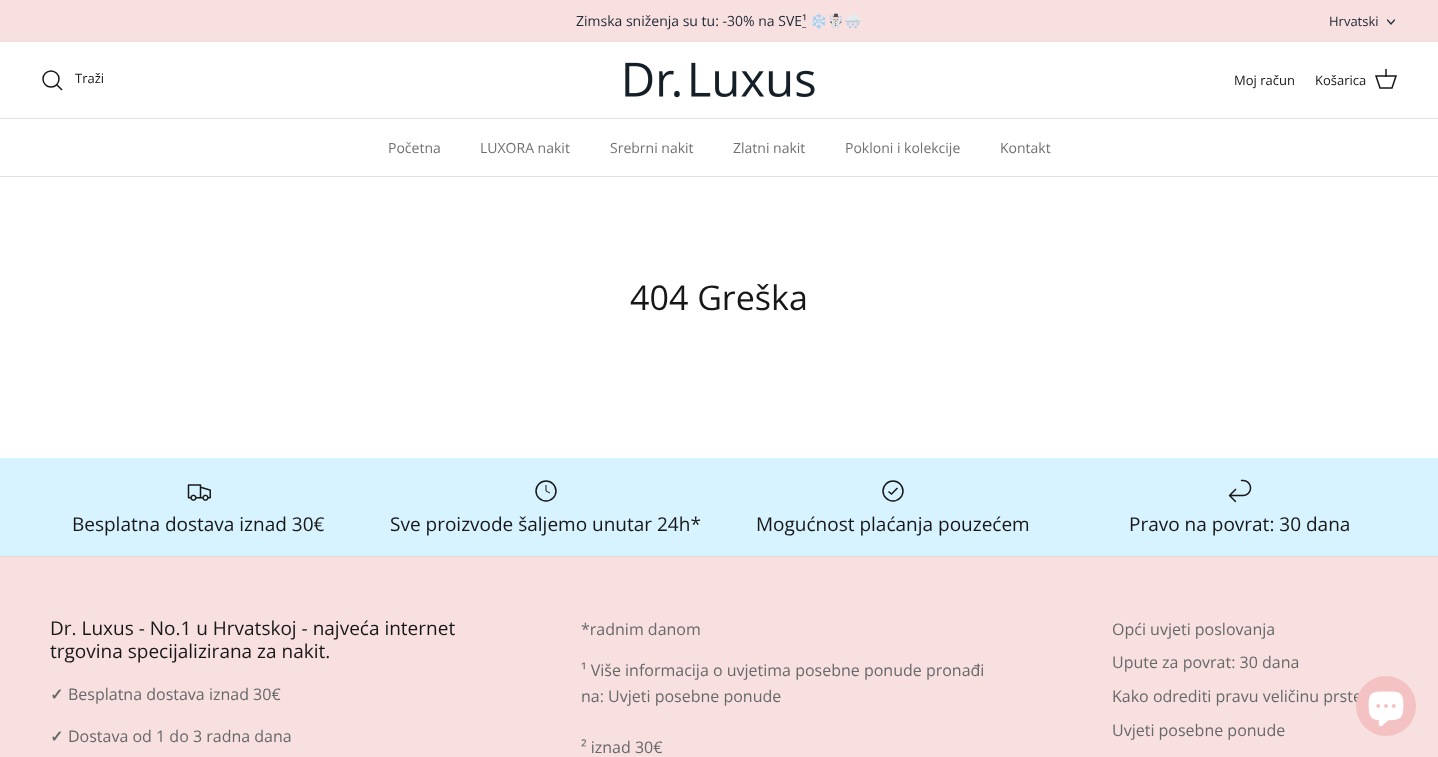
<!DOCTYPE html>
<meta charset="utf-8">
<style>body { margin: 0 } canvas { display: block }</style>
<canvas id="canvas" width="1438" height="757"></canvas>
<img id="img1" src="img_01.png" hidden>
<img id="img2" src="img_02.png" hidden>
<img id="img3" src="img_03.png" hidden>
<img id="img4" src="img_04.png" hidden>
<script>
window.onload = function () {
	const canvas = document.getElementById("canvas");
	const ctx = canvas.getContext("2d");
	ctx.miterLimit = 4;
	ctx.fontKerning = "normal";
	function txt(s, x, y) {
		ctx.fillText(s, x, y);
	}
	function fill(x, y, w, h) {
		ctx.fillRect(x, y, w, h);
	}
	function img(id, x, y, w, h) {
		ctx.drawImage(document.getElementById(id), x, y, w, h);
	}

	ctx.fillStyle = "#FFFFFF";
	fill(0, 0, 1438, 757);
	ctx.fillStyle = "#F9E0E0";
	fill(0, 0, 1438, 42);
	ctx.beginPath();
	ctx.moveTo(1387.5, 20);
	ctx.lineTo(1391, 24);
	ctx.lineTo(1394.5, 20);
	ctx.strokeStyle = "#212B36";
	ctx.lineWidth = 1.2;
	ctx.lineCap = "round";
	ctx.lineJoin = "round";
	ctx.stroke();
	ctx.fillStyle = "#DFE3E8";
	fill(0, 118, 1438, 1);
	ctx.beginPath();
	ctx.arc(51, 79, 8, 0, Math.PI * 2);
	ctx.strokeStyle = "#171717";
	ctx.lineWidth = 1.5;
	ctx.stroke();
	ctx.beginPath();
	ctx.moveTo(57, 85);
	ctx.lineTo(61.5, 89.5);
	ctx.lineCap = "square";
	ctx.lineJoin = "miter";
	ctx.stroke();
	img("img1", 625, 62, 190, 36);
	ctx.beginPath();
	ctx.moveTo(1376, 76);
	ctx.lineTo(1396, 76);
	ctx.lineTo(1392, 88);
	ctx.lineTo(1380, 88);
	ctx.closePath();
	ctx.lineCap = "butt";
	ctx.stroke();
	ctx.fillStyle = "rgba(23, 23, 23, 0.75)";
	fill(1385, 69, 2, 8);
	ctx.fillStyle = "#DFE3E8";
	fill(0, 176, 1438, 1);
	ctx.fillStyle = "#F9E0E0";
	fill(0, 557, 1438, 200);
	ctx.fillStyle = "#D7F3FF";
	fill(0, 458, 1438, 98);
	img("img2", 187, 484, 24, 17);
	ctx.beginPath();
	ctx.arc(546, 491, 10, 0, Math.PI * 2);
	ctx.stroke();
	ctx.beginPath();
	ctx.moveTo(546, 485);
	ctx.lineTo(546, 491);
	ctx.lineTo(550, 493);
	ctx.lineWidth = 1;
	ctx.stroke();
	ctx.beginPath();
	ctx.arc(893, 491, 10, 0, Math.PI * 2);
	ctx.lineWidth = 1.5;
	ctx.stroke();
	ctx.beginPath();
	ctx.moveTo(897.5, 488);
	ctx.lineTo(891.5, 494);
	ctx.lineTo(888.5, 491.5);
	ctx.stroke();
	img("img3", 1228, 479, 24, 24);
	ctx.fillStyle = "#ECD6D1";
	fill(0, 556, 1438, 1);
	ctx.font = "14px Open Sans";
	ctx.fillStyle = "#212B36";
	txt("Zimska sniženja su tu: -30% na SVE¹", 576, 26);
	ctx.font = "14px Noto Color Emoji";
	txt("❄️☃️🌨️", 810, 26);
	ctx.fillStyle = "#77737A";
	fill(802, 27, 4, 1);
	ctx.font = "13px Open Sans";
	ctx.fillStyle = "#212B36";
	txt("Hrvatski", 1329, 26);
	ctx.fillStyle = "#171717";
	txt("Traži", 75, 83);
	txt("Moj račun", 1234, 85);
	txt("Košarica", 1315, 85);
	ctx.font = "14px Open Sans";
	ctx.fillStyle = "#707173";
	txt("Početna", 388, 153);
	txt("LUXORA nakit", 480, 153);
	txt("Srebrni nakit", 610, 153);
	txt("Zlatni nakit", 733, 153);
	txt("Pokloni i kolekcije", 845, 153);
	txt("Kontakt", 1000, 153);
	ctx.font = "34px Open Sans";
	ctx.fillStyle = "#171717";
	txt("404 Greška", 630, 310);
	ctx.font = "19px Open Sans";
	txt("Besplatna dostava iznad 30€", 72, 531);
	txt("Sve proizvode šaljemo unutar 24h*", 390, 531);
	txt("Mogućnost plaćanja pouzećem", 756, 531);
	txt("Pravo na povrat: 30 dana", 1129, 531);
	txt("Dr. Luxus - No.1 u Hrvatskoj - najveća internet", 50, 635);
	txt("trgovina specijalizirana za nakit.", 50, 658);
	ctx.font = "bold 16px DejaVu Sans";
	ctx.fillStyle = "#676869";
	txt("✓", 50, 700);
	ctx.font = "16px Open Sans";
	txt("Besplatna dostava iznad 30€", 68, 700);
	ctx.font = "bold 16px DejaVu Sans";
	txt("✓", 50, 742);
	ctx.font = "16px Open Sans";
	txt("Dostava od 1 do 3 radna dana", 68, 742);
	txt("*radnim danom", 581, 635);
	txt("¹ Više informacija o uvjetima posebne ponude pronađi", 581, 676);
	txt("na: Uvjeti posebne ponude", 581, 702);
	txt("² iznad 30€", 581, 753);
	txt("Opći uvjeti poslovanja", 1112, 635);
	txt("Upute za povrat: 30 dana", 1112, 668);
	txt("Kako odrediti pravu veličinu prste", 1112, 702);
	txt("Uvjeti posebne ponude", 1112, 736);
	ctx.fillStyle = "#F4C2C2";
	ctx.beginPath();
	ctx.arc(1386, 706, 30, 0, Math.PI * 2);
	ctx.fill();
	img("img4", 1368, 691, 36, 36);
};
</script>
